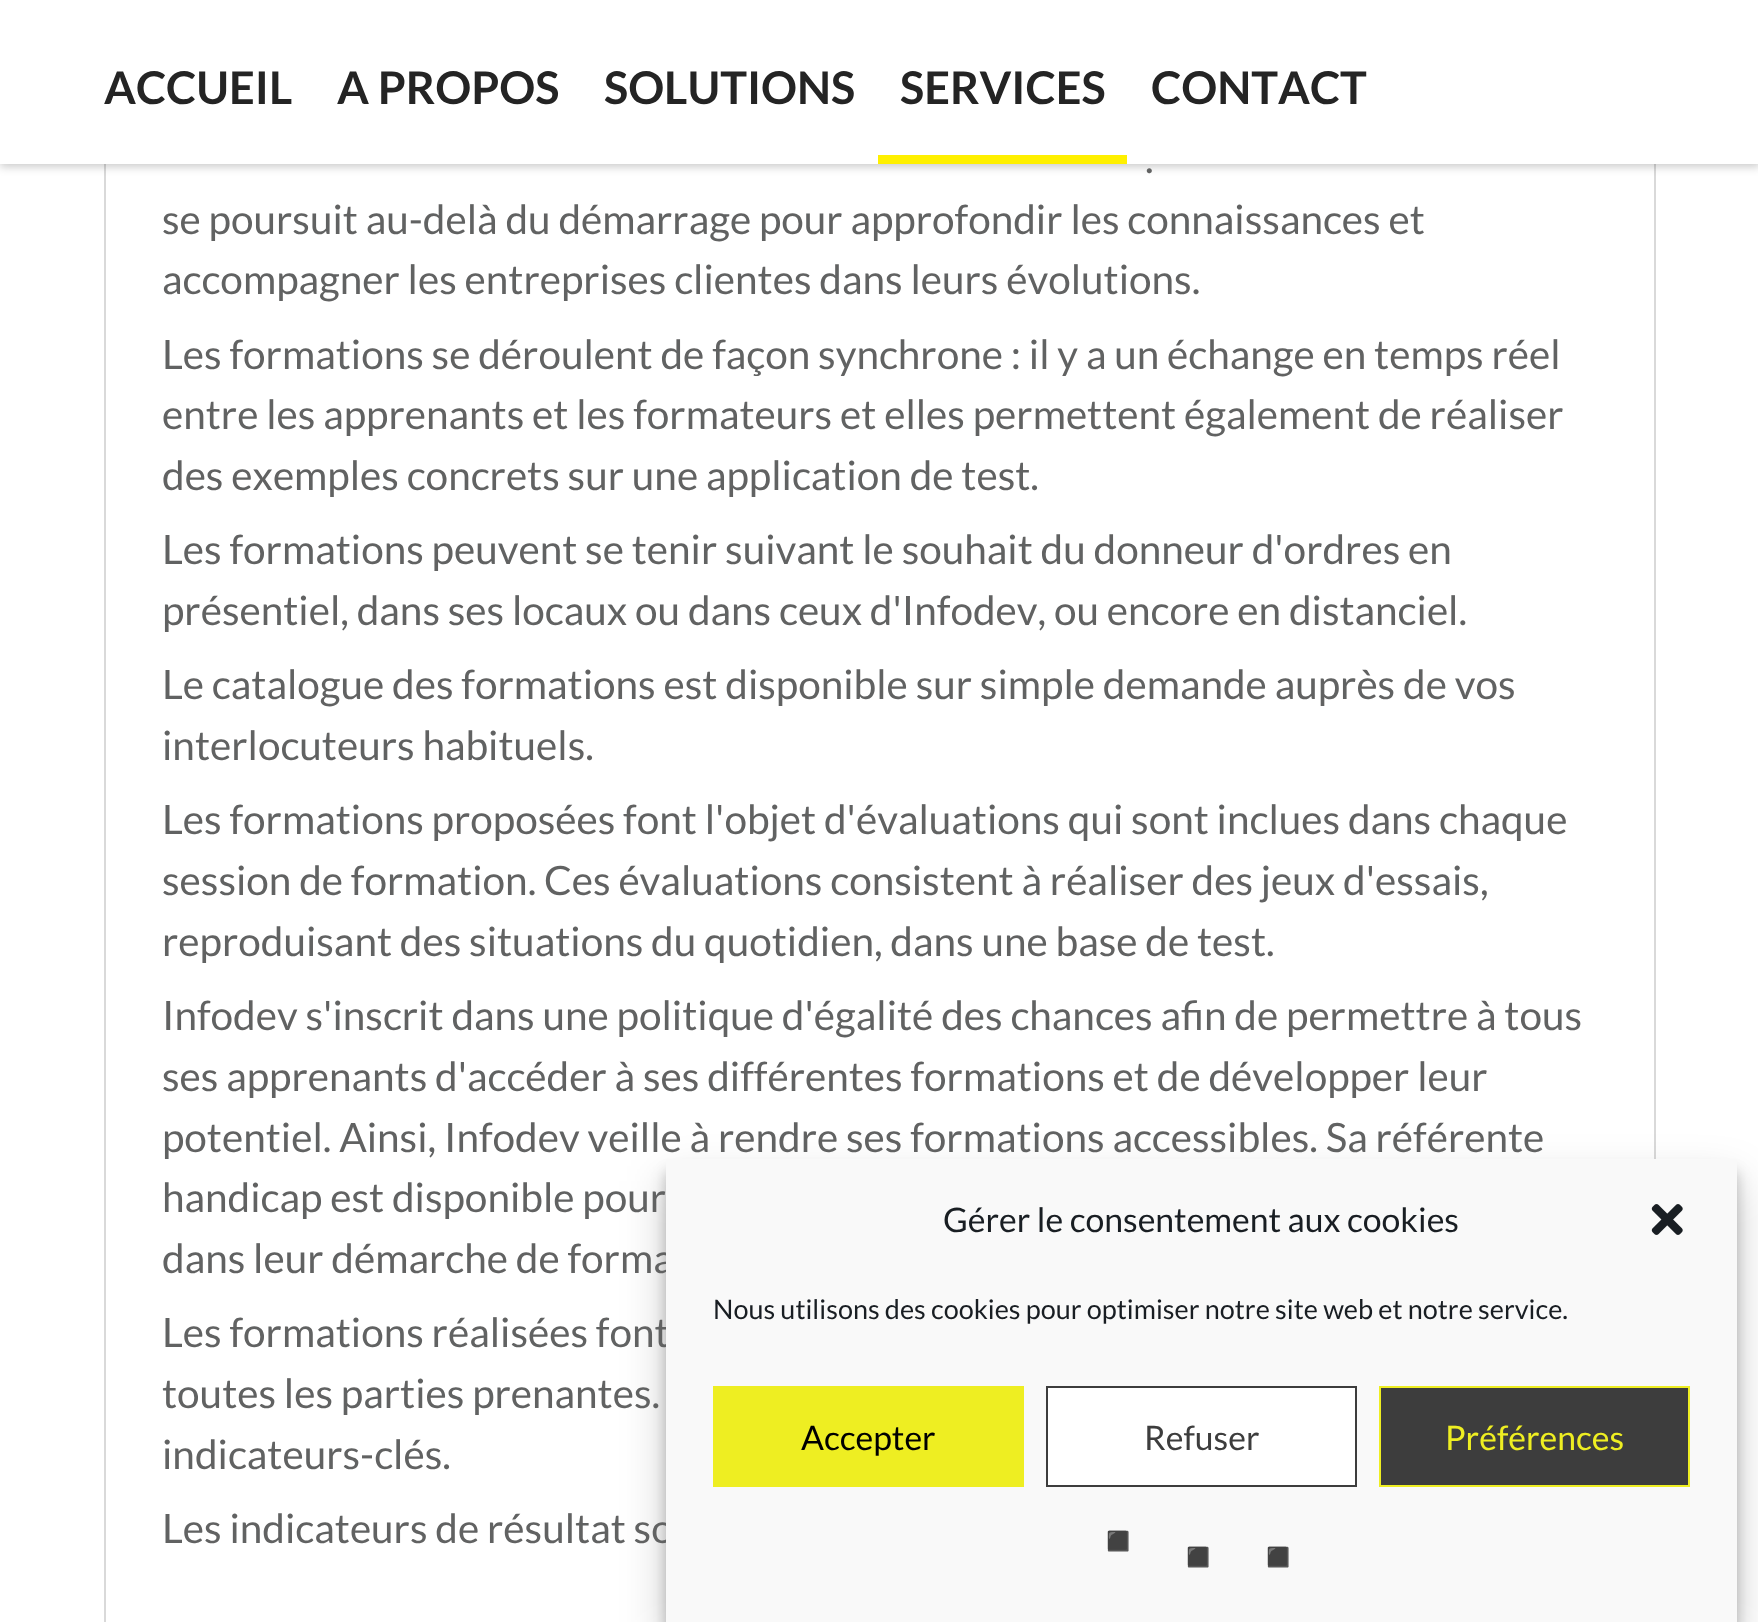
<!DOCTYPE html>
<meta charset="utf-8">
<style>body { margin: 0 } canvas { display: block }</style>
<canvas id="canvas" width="1758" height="1622"></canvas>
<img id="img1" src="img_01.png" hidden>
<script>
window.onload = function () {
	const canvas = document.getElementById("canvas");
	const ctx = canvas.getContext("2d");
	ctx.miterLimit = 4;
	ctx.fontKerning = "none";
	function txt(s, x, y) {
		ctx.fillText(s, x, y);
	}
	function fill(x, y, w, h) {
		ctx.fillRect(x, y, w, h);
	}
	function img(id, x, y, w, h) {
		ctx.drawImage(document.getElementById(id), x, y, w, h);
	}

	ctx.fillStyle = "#FFFFFF";
	fill(0, 0, 1758, 1622);
	ctx.strokeStyle = "#D9D9D9";
	ctx.lineWidth = 2;
	ctx.strokeRect(105, -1, 1550, 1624);
	ctx.fillStyle = "rgba(0, 0, 0, 0.2)";
	ctx.filter = "blur(4.5px)";
	ctx.beginPath();
	ctx.rect(0, 2, 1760, 165);
	ctx.fill();
	ctx.filter = "none";
	ctx.fillStyle = "#FFFFFF";
	fill(0, 0, 1758, 164);
	ctx.fillStyle = "#FFF000";
	fill(878, 155, 249, 9);
	ctx.fillStyle = "rgba(0, 0, 0, 0.23)";
	ctx.filter = "blur(7px)";
	ctx.beginPath();
	ctx.rect(666, 1172, 1071, 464);
	ctx.fill();
	ctx.filter = "none";
	ctx.fillStyle = "rgba(0, 0, 0, 0.19)";
	ctx.filter = "blur(22.5px)";
	ctx.beginPath();
	ctx.rect(666, 1181, 1071, 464);
	ctx.fill();
	ctx.filter = "none";
	ctx.font = "bold 45px Lato";
	ctx.fillStyle = "#242424";
	txt("ACCUEIL", 104, 104);
	txt("A PROPOS", 337, 104);
	txt("SOLUTIONS", 604, 104);
	txt("SERVICES", 900, 104);
	txt("CONTACT", 1151, 104);
	ctx.font = "40.5px Lato";
	ctx.fillStyle = "#616262";
	txt(".", 1145, 173);
	txt("se poursuit au-delà du démarrage pour approfondir les connaissances et", 162, 234);
	txt("accompagner les entreprises clientes dans leurs évolutions.", 162, 294);
	txt("Les formations se déroulent de façon synchrone : il y a un échange en temps réel", 162, 369);
	txt("entre les apprenants et les formateurs et elles permettent également de réaliser", 162, 429);
	txt("des exemples concrets sur une application de test.", 162, 490);
	txt("Les formations peuvent se tenir suivant le souhait du donneur d'ordres en", 162, 564);
	txt("présentiel, dans ses locaux ou dans ceux d'Infodev, ou encore en distanciel.", 162, 625);
	txt("Le catalogue des formations est disponible sur simple demande auprès de vos", 162, 699);
	txt("interlocuteurs habituels.", 162, 760);
	txt("Les formations proposées font l'objet d'évaluations qui sont inclues dans chaque", 162, 834);
	txt("session de formation. Ces évaluations consistent à réaliser des jeux d'essais,", 162, 895);
	txt("reproduisant des situations du quotidien, dans une base de test.", 162, 956);
	txt("Infodev s'inscrit dans une politique d'égalité des chances afin de permettre à tous", 162, 1030);
	txt("ses apprenants d'accéder à ses différentes formations et de développer leur", 162, 1091);
	txt("potentiel. Ainsi, Infodev veille à rendre ses formations accessibles. Sa référente", 162, 1152);
	txt("handicap est disponible pour", 162, 1212);
	txt("dans leur démarche de forma", 162, 1273);
	txt("Les formations réalisées font", 162, 1347);
	txt("toutes les parties prenantes.", 162, 1408);
	txt("indicateurs-clés.", 162, 1469);
	txt("Les indicateurs de résultat so", 162, 1543);
	ctx.fillStyle = "#F9F9F9";
	fill(666, 1159, 1071, 463);
	ctx.font = "33.75px Lato";
	ctx.fillStyle = "#191E23";
	txt("Gérer le consentement aux cookies", 943, 1232);
	img("img1", 1651, 1204, 32, 31);
	ctx.font = "27px Lato";
	txt("Nous utilisons des cookies pour optimiser notre site web et notre service.", 713, 1319);
	ctx.fillStyle = "#EEEE22";
	fill(713, 1386, 311, 101);
	ctx.font = "33.75px Lato";
	ctx.fillStyle = "#000000";
	txt("Accepter", 801, 1450);
	ctx.fillStyle = "#FFFFFF";
	ctx.beginPath();
	ctx.rect(1047, 1387, 309, 99);
	ctx.fill();
	ctx.strokeStyle = "#3D3D3D";
	ctx.stroke();
	ctx.fillStyle = "#3D3D3D";
	txt("Refuser", 1144, 1450);
	ctx.beginPath();
	ctx.rect(1380, 1387, 309, 99);
	ctx.fill();
	ctx.strokeStyle = "#EEEE22";
	ctx.stroke();
	ctx.fillStyle = "#EEEE22";
	txt("Préférences", 1445, 1450);
	ctx.font = "40.5px Noto Color Emoji";
	ctx.fillStyle = "#616262";
	txt("◾", 1093, 1555);
	txt("◾", 1173, 1571);
	txt("◾", 1253, 1571);
};
</script>
